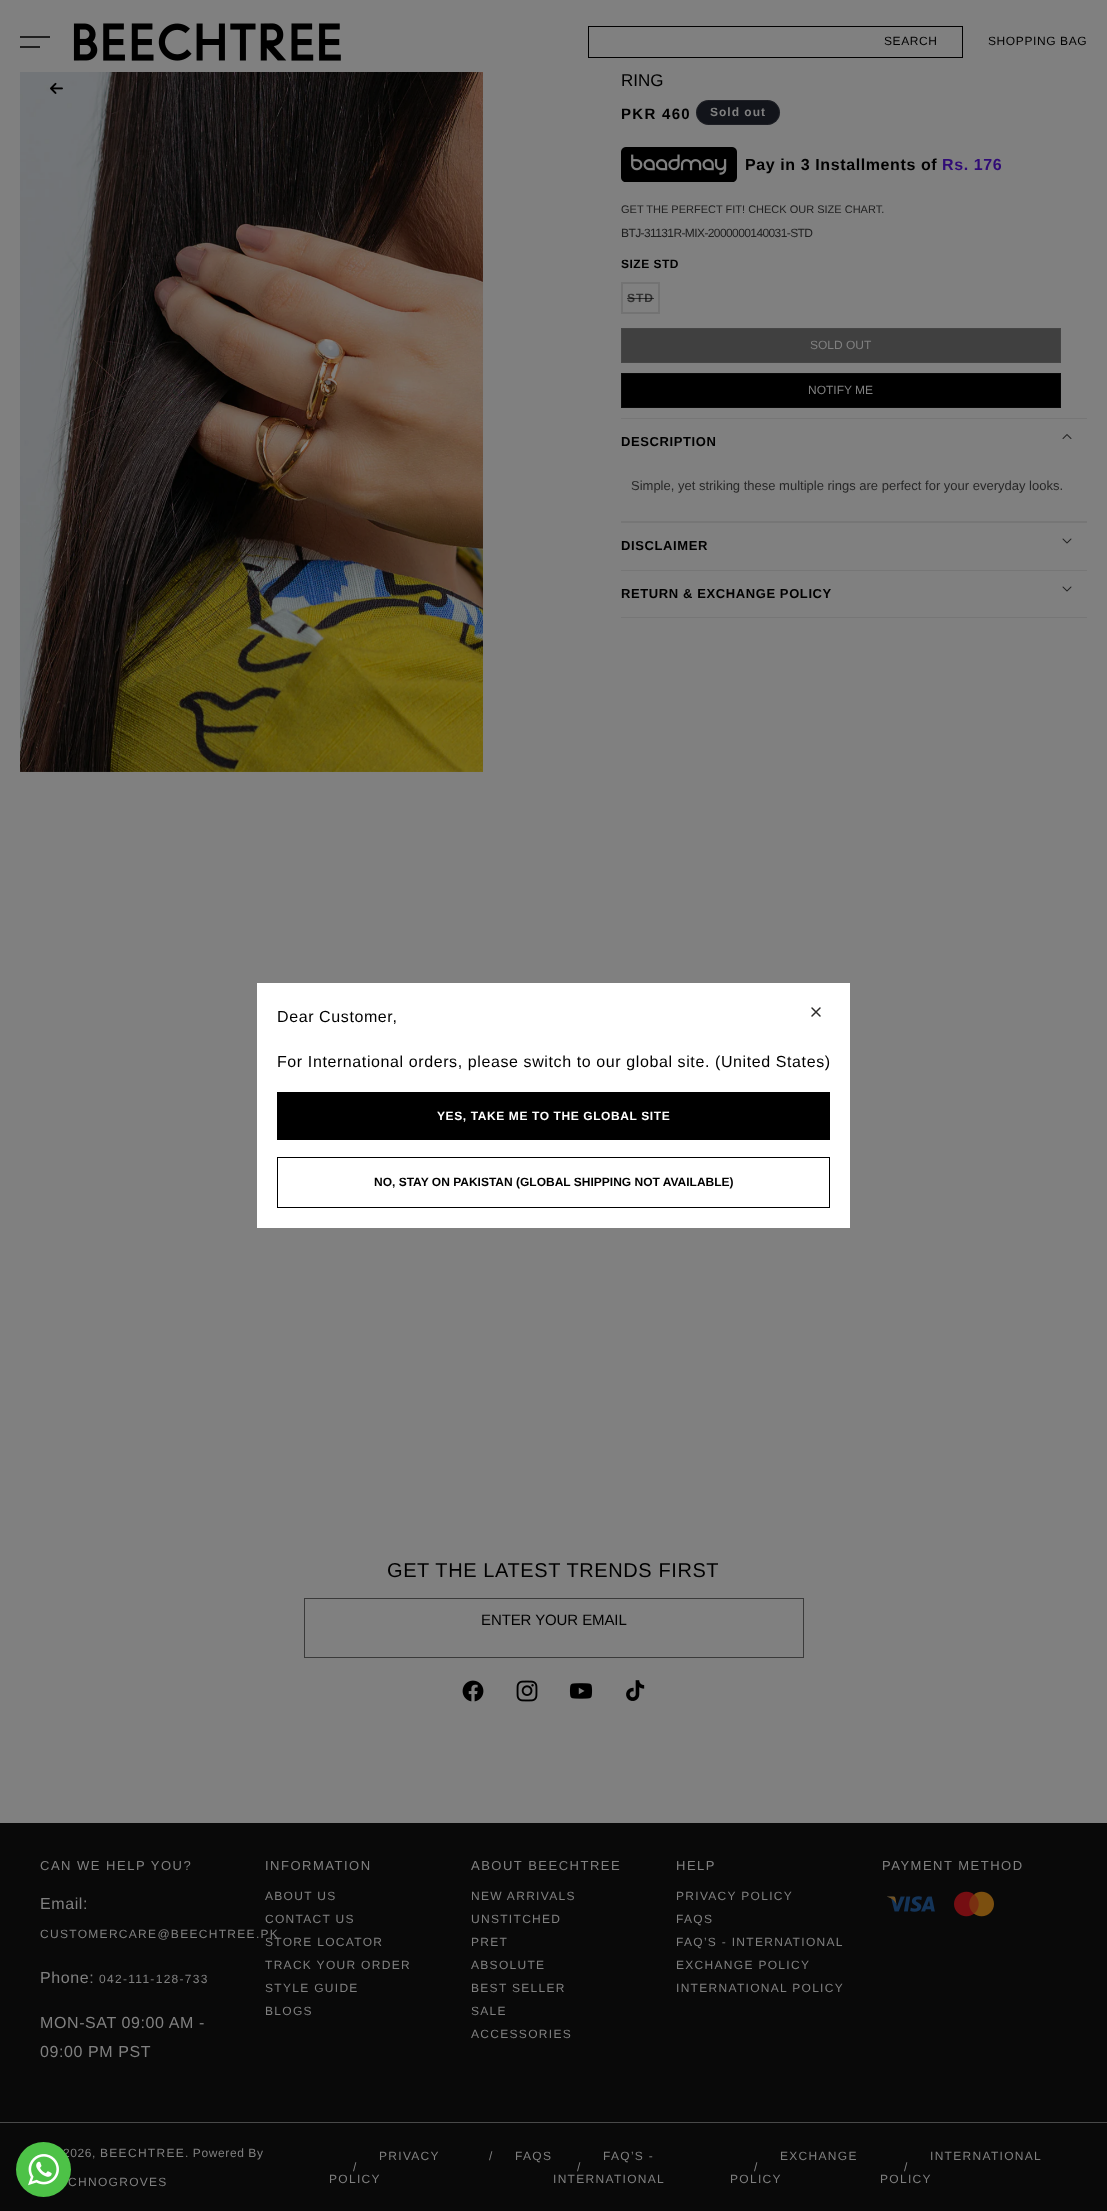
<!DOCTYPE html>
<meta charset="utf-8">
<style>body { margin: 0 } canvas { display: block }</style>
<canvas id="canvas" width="1107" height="2211"></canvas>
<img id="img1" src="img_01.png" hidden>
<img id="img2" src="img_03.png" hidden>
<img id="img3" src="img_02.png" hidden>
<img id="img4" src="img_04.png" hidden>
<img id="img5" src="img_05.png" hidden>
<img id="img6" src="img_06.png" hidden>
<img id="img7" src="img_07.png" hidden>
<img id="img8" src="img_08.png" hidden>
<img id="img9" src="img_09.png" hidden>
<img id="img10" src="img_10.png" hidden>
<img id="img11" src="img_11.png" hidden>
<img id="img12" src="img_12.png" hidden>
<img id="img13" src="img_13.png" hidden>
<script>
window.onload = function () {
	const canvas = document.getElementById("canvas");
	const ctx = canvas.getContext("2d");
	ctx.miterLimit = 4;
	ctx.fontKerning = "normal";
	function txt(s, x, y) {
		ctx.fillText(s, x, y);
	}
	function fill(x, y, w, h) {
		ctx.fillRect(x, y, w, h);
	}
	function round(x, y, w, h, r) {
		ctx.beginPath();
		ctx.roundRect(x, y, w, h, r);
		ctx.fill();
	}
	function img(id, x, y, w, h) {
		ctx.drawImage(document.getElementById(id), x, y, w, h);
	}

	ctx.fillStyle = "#808080";
	fill(0, 0, 1107, 2211);
	ctx.fillStyle = "#202020";
	fill(20, 36, 30, 2);
	fill(20, 46, 20, 2);
	img("img1", 73, 23, 268, 38);
	ctx.strokeStyle = "#000000";
	ctx.strokeRect(588.5, 26.5, 374, 31);
	img("img2", 20, 72, 463, 700);
	img("img3", 50, 82, 13, 12);
	ctx.fillStyle = "#12141A";
	round(696, 100, 84, 25, 12.5);
	ctx.beginPath();
	ctx.roundRect(696.5, 100.5, 83, 24, 12);
	ctx.strokeStyle = "rgba(128, 128, 128, 0.1)";
	ctx.stroke();
	img("img4", 621, 147, 116, 35);
	ctx.strokeStyle = "#737373";
	ctx.lineWidth = 2;
	ctx.strokeRect(622, 283, 37, 30);
	ctx.fillStyle = "#404040";
	fill(622, 329, 438, 33);
	ctx.strokeStyle = "#454545";
	ctx.lineWidth = 1;
	ctx.strokeRect(621.5, 328.5, 439, 34);
	ctx.fillStyle = "#000000";
	fill(622, 374, 438, 33);
	ctx.strokeStyle = "#090909";
	ctx.strokeRect(621.5, 373.5, 439, 34);
	ctx.fillStyle = "#767676";
	fill(621, 418, 466, 1);
	fill(621, 521, 466, 2);
	img("img5", 1062, 434, 10, 5);
	fill(621, 570, 466, 1);
	img("img6", 1062, 538, 10, 6);
	fill(621, 617, 466, 1);
	img("img6", 1062, 586, 10, 6);
	ctx.fillStyle = "#FFFFFF";
	fill(257, 983, 593, 245);
	ctx.beginPath();
	ctx.moveTo(812, 1016);
	ctx.lineTo(820, 1008);
	ctx.moveTo(820, 1016);
	ctx.lineTo(812, 1008);
	ctx.strokeStyle = "#2D2B2A";
	ctx.lineWidth = 1.5;
	ctx.lineCap = "round";
	ctx.lineJoin = "round";
	ctx.stroke();
	ctx.fillStyle = "#000000";
	fill(277, 1092, 553, 48);
	ctx.strokeStyle = "#000000";
	ctx.lineWidth = 1;
	ctx.lineJoin = "miter";
	ctx.strokeRect(277.5, 1157.5, 552, 50);
	ctx.strokeStyle = "#3A3A3A";
	ctx.strokeRect(304.5, 1598.5, 499, 59);
	img("img7", 462, 1680, 22, 22);
	img("img8", 516, 1680, 22, 22);
	img("img9", 569, 1683, 24, 16);
	img("img10", 626, 1680, 19, 21);
	ctx.fillStyle = "#090909";
	fill(0, 1823, 1107, 299);
	img("img11", 887, 1896, 48, 16);
	img("img12", 954, 1891, 40, 26);
	fill(0, 2123, 1107, 88);
	ctx.fillStyle = "#494949";
	fill(0, 2122, 1107, 1);
	ctx.letterSpacing = "0.6px";
	ctx.font = "12px Liberation Sans";
	ctx.fillStyle = "#000000";
	txt("SEARCH", 884, 45);
	txt("SHOPPING BAG", 988, 45);
	ctx.letterSpacing = "0px";
	ctx.font = "17px Liberation Sans";
	txt("RING", 621, 86);
	ctx.letterSpacing = "1.3px";
	ctx.font = "bold 15px Liberation Sans";
	txt("PKR 460", 621, 119);
	ctx.letterSpacing = "1px";
	ctx.font = "bold 12px Liberation Sans";
	ctx.fillStyle = "#808080";
	txt("Sold out", 710, 116);
	ctx.letterSpacing = "0.6px";
	ctx.font = "bold 16px Liberation Sans";
	ctx.fillStyle = "#000000";
	txt("Pay in 3 Installments of", 745, 170);
	ctx.fillStyle = "#300B76";
	txt("Rs. 176", 942, 170);
	ctx.letterSpacing = "0px";
	ctx.font = "11px Liberation Sans";
	ctx.fillStyle = "#202020";
	txt("GET THE PERFECT FIT! CHECK OUR SIZE CHART.", 621, 213);
	ctx.letterSpacing = "-0.6px";
	ctx.font = "12px Liberation Sans";
	txt("BTJ-31131R-MIX-2000000140031-STD", 621, 237);
	ctx.letterSpacing = "0.5px";
	ctx.font = "bold 12px Liberation Sans";
	ctx.fillStyle = "#000000";
	txt("SIZE STD", 621, 268);
	ctx.letterSpacing = "1px";
	ctx.fillStyle = "#333333";
	txt("STD", 627, 302);
	ctx.fillStyle = "rgba(0, 0, 0, 0.6)";
	fill(627, 298, 27, 1);
	ctx.letterSpacing = "0px";
	ctx.font = "12px Liberation Sans";
	ctx.fillStyle = "#808080";
	txt("SOLD OUT", 810, 349);
	txt("NOTIFY ME", 808, 394);
	ctx.letterSpacing = "0.6px";
	ctx.font = "bold 13px Liberation Sans";
	ctx.fillStyle = "#000000";
	txt("DESCRIPTION", 621, 446);
	ctx.letterSpacing = "0px";
	ctx.font = "13px Liberation Sans";
	ctx.fillStyle = "#272727";
	txt("Simple, yet striking these multiple rings are perfect for your everyday looks.", 631, 490);
	ctx.letterSpacing = "0.6px";
	ctx.font = "bold 13px Liberation Sans";
	ctx.fillStyle = "#000000";
	txt("DISCLAIMER", 621, 550);
	txt("RETURN & EXCHANGE POLICY", 621, 598);
	ctx.font = "16px Liberation Sans";
	txt("Dear Customer,", 277, 1022);
	txt("For International orders, please switch to our global site. (United States)", 277, 1067);
	ctx.font = "bold 12px Liberation Sans";
	ctx.fillStyle = "#FFFFFF";
	txt("YES, TAKE ME TO THE GLOBAL SITE", 437, 1120);
	ctx.letterSpacing = "0px";
	ctx.fillStyle = "#000000";
	txt("NO, STAY ON PAKISTAN (GLOBAL SHIPPING NOT AVAILABLE)", 374, 1186);
	ctx.letterSpacing = "0.6px";
	ctx.font = "20px Liberation Sans";
	txt("GET THE LATEST TRENDS FIRST", 387, 1577);
	ctx.letterSpacing = "-0.1px";
	ctx.font = "15px Liberation Sans";
	txt("ENTER YOUR EMAIL", 481, 1625);
	ctx.letterSpacing = "1.5px";
	ctx.font = "13px Liberation Sans";
	ctx.fillStyle = "#808080";
	txt("CAN WE HELP YOU?", 40, 1870);
	ctx.letterSpacing = "0.6px";
	ctx.font = "16px Liberation Sans";
	txt("Email:", 40, 1909);
	ctx.letterSpacing = "1.3px";
	ctx.font = "12px Liberation Sans";
	txt("CUSTOMERCARE@BEECHTREE.PK", 40, 1938);
	ctx.letterSpacing = "0.6px";
	ctx.font = "16px Liberation Sans";
	txt("Phone:", 40, 1983);
	ctx.letterSpacing = "1.3px";
	ctx.font = "12px Liberation Sans";
	txt("042-111-128-733", 99, 1983);
	ctx.letterSpacing = "0.6px";
	ctx.font = "16px Liberation Sans";
	txt("MON-SAT 09:00 AM -", 40, 2028);
	txt("09:00 PM PST", 40, 2057);
	ctx.letterSpacing = "1.5px";
	ctx.font = "13px Liberation Sans";
	txt("INFORMATION", 265, 1870);
	ctx.letterSpacing = "1.3px";
	ctx.font = "12px Liberation Sans";
	txt("ABOUT US", 265, 1900);
	txt("CONTACT US", 265, 1923);
	txt("STORE LOCATOR", 265, 1946);
	txt("TRACK YOUR ORDER", 265, 1969);
	txt("STYLE GUIDE", 265, 1992);
	txt("BLOGS", 265, 2015);
	ctx.letterSpacing = "1.5px";
	ctx.font = "13px Liberation Sans";
	txt("ABOUT BEECHTREE", 471, 1870);
	ctx.letterSpacing = "1.3px";
	ctx.font = "12px Liberation Sans";
	txt("NEW ARRIVALS", 471, 1900);
	txt("UNSTITCHED", 471, 1923);
	txt("PRET", 471, 1946);
	txt("ABSOLUTE", 471, 1969);
	txt("BEST SELLER", 471, 1992);
	txt("SALE", 471, 2015);
	txt("ACCESSORIES", 471, 2038);
	ctx.letterSpacing = "1.5px";
	ctx.font = "13px Liberation Sans";
	txt("HELP", 676, 1870);
	ctx.letterSpacing = "1.3px";
	ctx.font = "12px Liberation Sans";
	txt("PRIVACY POLICY", 676, 1900);
	txt("FAQS", 676, 1923);
	txt("FAQ’S - INTERNATIONAL", 676, 1946);
	txt("EXCHANGE POLICY", 676, 1969);
	txt("INTERNATIONAL POLICY", 676, 1992);
	ctx.letterSpacing = "1.5px";
	ctx.font = "13px Liberation Sans";
	txt("PAYMENT METHOD", 882, 1870);
	ctx.letterSpacing = "0.6px";
	ctx.font = "12px Liberation Sans";
	txt("2026,", 63, 2157);
	ctx.letterSpacing = "1.3px";
	txt("BEECHTREE", 100, 2157);
	ctx.letterSpacing = "0.6px";
	txt(". Powered By", 185, 2157);
	ctx.letterSpacing = "1.3px";
	txt("CHNOGROVES", 68, 2186);
	txt("PRIVACY", 379, 2160);
	txt("/", 353, 2171);
	txt("POLICY", 329, 2183);
	txt("/", 489, 2160);
	txt("FAQS", 515, 2160);
	txt("FAQ’S -", 603, 2160);
	txt("/", 577, 2171);
	txt("INTERNATIONAL", 553, 2183);
	txt("EXCHANGE", 780, 2160);
	txt("/", 754, 2171);
	txt("POLICY", 730, 2183);
	txt("INTERNATIONAL", 930, 2160);
	txt("/", 904, 2171);
	txt("POLICY", 880, 2183);
	ctx.fillStyle = "#4DC247";
	ctx.beginPath();
	ctx.arc(43.5, 2169.5, 27.5, 0, Math.PI * 2);
	ctx.fill();
	img("img13", 28, 2154, 31, 32);
};
</script>
